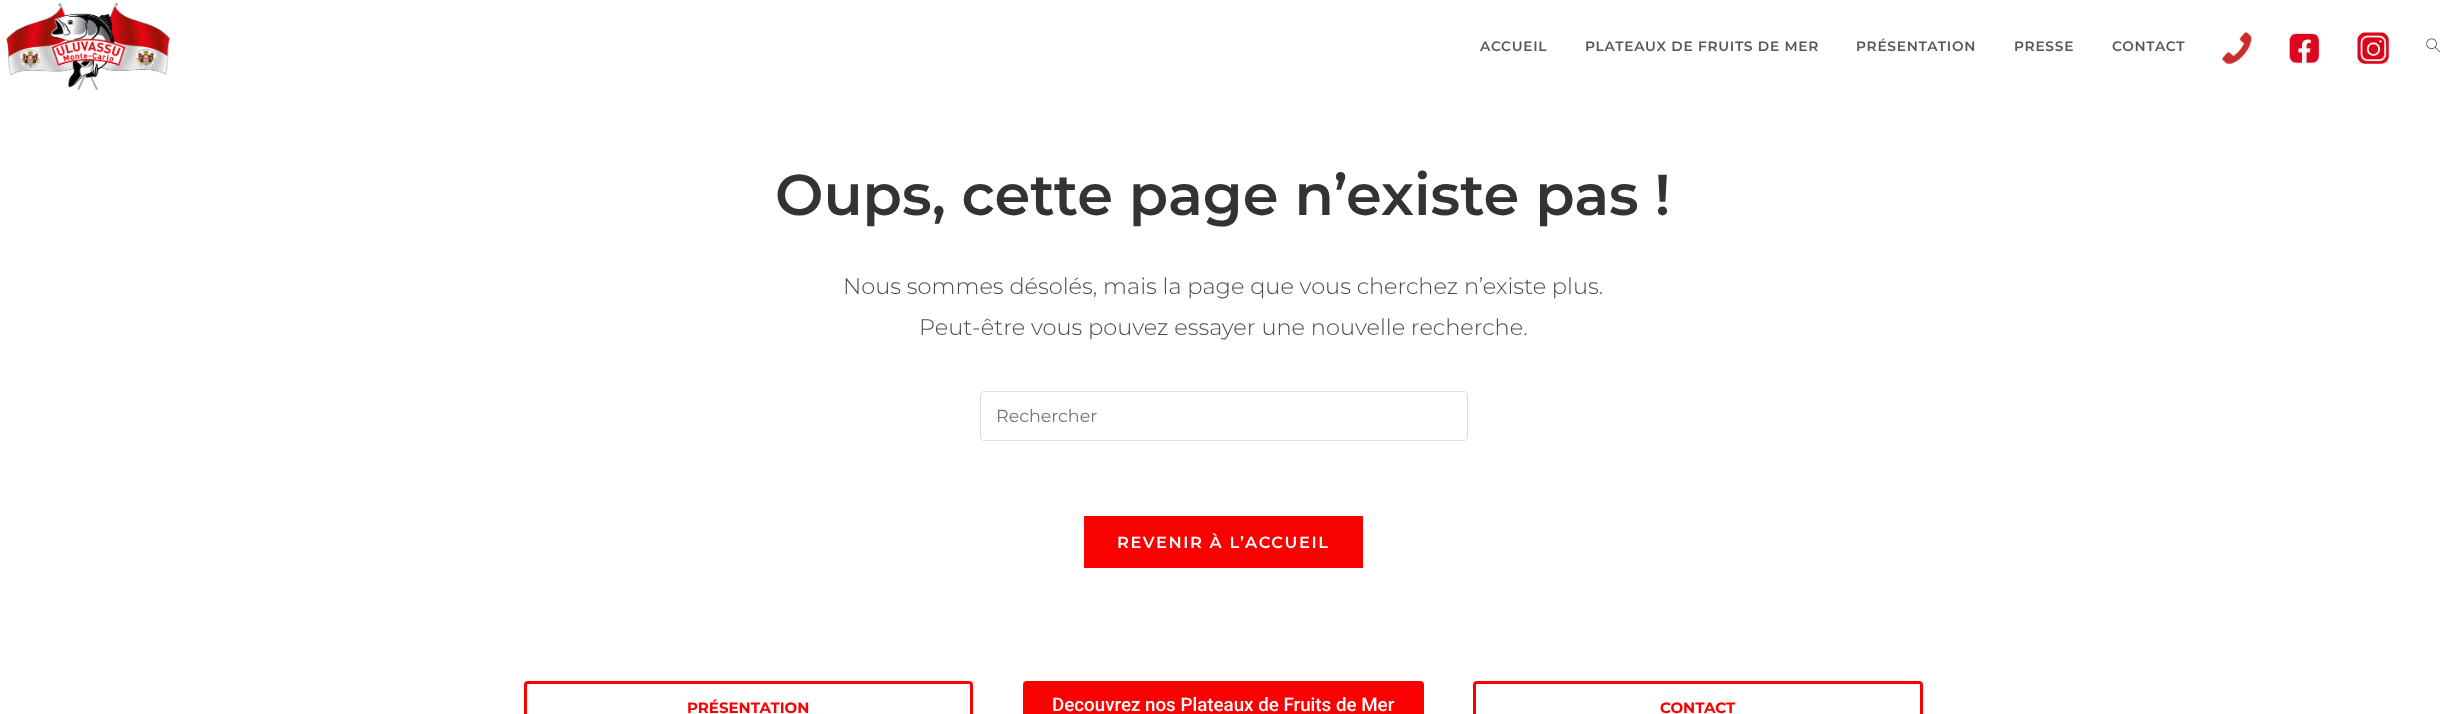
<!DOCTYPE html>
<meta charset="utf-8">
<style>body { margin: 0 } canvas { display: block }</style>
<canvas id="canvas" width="2446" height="714"></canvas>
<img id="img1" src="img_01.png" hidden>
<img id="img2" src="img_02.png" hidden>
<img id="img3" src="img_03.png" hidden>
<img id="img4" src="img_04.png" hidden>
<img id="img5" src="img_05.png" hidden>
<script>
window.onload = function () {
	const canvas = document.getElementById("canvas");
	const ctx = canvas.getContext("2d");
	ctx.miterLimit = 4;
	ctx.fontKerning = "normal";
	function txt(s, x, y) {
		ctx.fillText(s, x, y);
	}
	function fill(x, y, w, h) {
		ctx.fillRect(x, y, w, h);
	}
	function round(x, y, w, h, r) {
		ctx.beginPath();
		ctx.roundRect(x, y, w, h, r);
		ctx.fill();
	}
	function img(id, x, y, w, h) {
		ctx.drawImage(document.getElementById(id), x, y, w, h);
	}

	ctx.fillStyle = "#FFFFFF";
	fill(0, 0, 2446, 714);
	img("img1", 6, 2, 164, 88);
	img("img2", 2222, 32, 30, 32);
	img("img3", 2289, 32, 31, 32);
	img("img4", 2357, 32, 32, 32);
	img("img5", 2426, 38, 14, 15);
	ctx.beginPath();
	ctx.roundRect(980.5, 391.5, 487, 49, 3.5);
	ctx.strokeStyle = "#DDDDDD";
	ctx.stroke();
	ctx.fillStyle = "#F90101";
	fill(1084, 516, 279, 52);
	ctx.beginPath();
	ctx.roundRect(525.5, 682.5, 446, 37, 2.5);
	ctx.strokeStyle = "#F90101";
	ctx.lineWidth = 3;
	ctx.stroke();
	round(1023, 681, 401, 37, 4);
	ctx.beginPath();
	ctx.roundRect(1474.5, 682.5, 447, 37, 2.5);
	ctx.stroke();
	ctx.letterSpacing = "0.75px";
	ctx.font = "600 13.75px Montserrat";
	ctx.fillStyle = "#555555";
	txt("ACCUEIL", 1480, 51);
	txt("PLATEAUX DE FRUITS DE MER", 1585, 51);
	txt("PRÉSENTATION", 1856, 51);
	txt("PRESSE", 2014, 51);
	txt("CONTACT", 2112, 51);
	ctx.letterSpacing = "0px";
	ctx.font = "600 57.5px Montserrat";
	ctx.fillStyle = "#333333";
	txt("Oups, cette page n’existe pas !", 775, 215);
	ctx.font = "300 22.5px Montserrat";
	ctx.fillStyle = "#4A4A4A";
	txt("Nous sommes désolés, mais la page que vous cherchez n’existe plus.", 843, 294);
	txt("Peut-être vous pouvez essayer une nouvelle recherche.", 919, 335);
	ctx.font = "17.5px Montserrat";
	ctx.fillStyle = "#757575";
	txt("Rechercher", 996, 422);
	ctx.letterSpacing = "1.6px";
	ctx.font = "600 16.25px Montserrat";
	ctx.fillStyle = "#FFFFFF";
	txt("REVENIR À L’ACCUEIL", 1117, 548);
	ctx.letterSpacing = "0px";
	ctx.font = "bold 15px Montserrat";
	ctx.fillStyle = "#F90101";
	txt("PRÉSENTATION", 687, 713);
	ctx.font = "500 18.75px Roboto";
	ctx.fillStyle = "#FFFFFF";
	txt("Decouvrez nos Plateaux de Fruits de Mer", 1052, 711);
	ctx.font = "bold 15px Montserrat";
	ctx.fillStyle = "#F90101";
	txt("CONTACT", 1660, 713);
};
</script>
